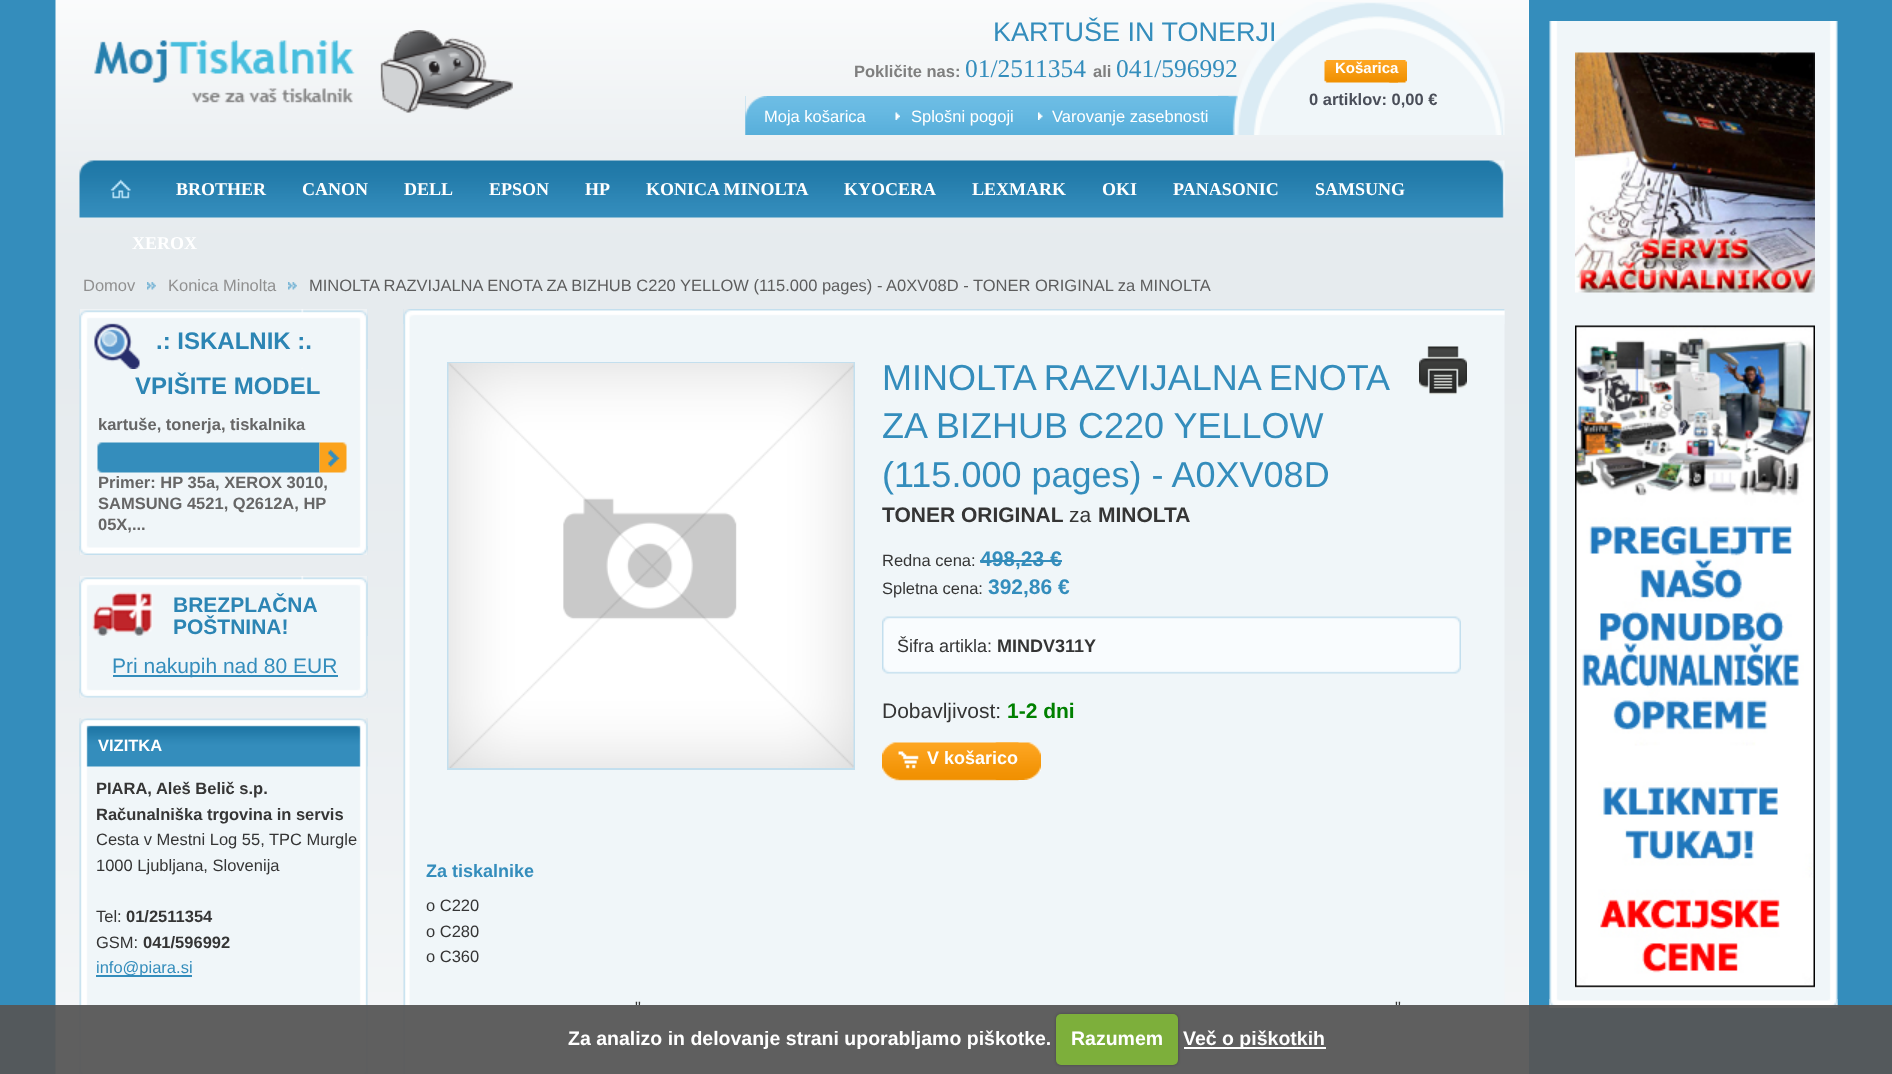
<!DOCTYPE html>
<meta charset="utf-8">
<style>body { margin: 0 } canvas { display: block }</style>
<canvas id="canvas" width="1892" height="1074"></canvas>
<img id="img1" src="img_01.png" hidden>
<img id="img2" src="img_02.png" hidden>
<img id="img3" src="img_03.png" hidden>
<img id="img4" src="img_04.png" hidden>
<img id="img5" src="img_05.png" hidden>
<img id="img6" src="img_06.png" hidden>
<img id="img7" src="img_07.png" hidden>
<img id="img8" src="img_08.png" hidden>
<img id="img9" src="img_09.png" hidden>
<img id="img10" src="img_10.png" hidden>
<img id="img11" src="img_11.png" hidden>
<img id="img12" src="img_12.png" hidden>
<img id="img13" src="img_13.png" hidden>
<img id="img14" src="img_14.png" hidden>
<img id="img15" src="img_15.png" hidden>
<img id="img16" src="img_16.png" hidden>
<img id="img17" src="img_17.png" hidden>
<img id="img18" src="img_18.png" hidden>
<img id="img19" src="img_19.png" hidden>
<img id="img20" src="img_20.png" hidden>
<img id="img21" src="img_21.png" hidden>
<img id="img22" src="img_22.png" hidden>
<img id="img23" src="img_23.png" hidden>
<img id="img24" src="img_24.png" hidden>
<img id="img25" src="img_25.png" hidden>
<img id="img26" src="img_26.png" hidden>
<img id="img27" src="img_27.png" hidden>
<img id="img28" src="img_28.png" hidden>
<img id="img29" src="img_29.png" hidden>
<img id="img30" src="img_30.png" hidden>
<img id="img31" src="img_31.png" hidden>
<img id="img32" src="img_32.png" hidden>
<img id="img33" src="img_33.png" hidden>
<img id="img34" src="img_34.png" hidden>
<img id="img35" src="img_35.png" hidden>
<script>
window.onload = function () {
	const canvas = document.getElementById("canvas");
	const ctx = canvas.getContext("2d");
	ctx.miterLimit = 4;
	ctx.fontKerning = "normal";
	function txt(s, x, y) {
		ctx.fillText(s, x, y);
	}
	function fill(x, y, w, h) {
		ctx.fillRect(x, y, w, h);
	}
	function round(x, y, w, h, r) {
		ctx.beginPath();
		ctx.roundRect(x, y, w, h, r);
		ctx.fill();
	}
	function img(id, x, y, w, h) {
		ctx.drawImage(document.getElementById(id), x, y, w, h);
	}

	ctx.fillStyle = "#348DBC";
	fill(0, 0, 1892, 1074);
	ctx.fillStyle = "#FFFFFF";
	fill(1528, 0, 1, 1074);
	img("img1", 55, 0, 1474, 1074);
	img("img2", 94, 30, 419, 83);
	img("img3", 1218, 2, 287, 133);
	img("img4", 1388, 60, 19, 23);
	img("img5", 1324, 60, 74, 23);
	img("img6", 745, 96, 484, 39);
	img("img7", 745, 96, 22, 39);
	img("img8", 895, 112, 5, 8);
	img("img9", 1038, 112, 5, 8);
	img("img10", 1549, 21, 289, 987);
	img("img11", 1549, 999, 289, 9);
	img("img12", 1575, 52, 240, 241);
	img("img13", 1575, 325, 240, 664);
	img("img14", 79, 160, 1426, 58);
	img("img15", 110, 179, 21, 20);
	img("img16", 147, 282, 9, 8);
	img("img17", 288, 282, 9, 8);
	img("img18", 79, 309, 289, 246);
	img("img19", 79, 309, 289, 60);
	img("img20", 79, 546, 289, 9);
	img("img21", 97, 442, 223, 31);
	img("img22", 319, 442, 28, 31);
	img("img23", 79, 576, 289, 122);
	img("img24", 79, 576, 289, 60);
	img("img25", 79, 688, 289, 10);
	ctx.fillStyle = "#348DBC";
	fill(113, 675, 225, 2);
	img("img26", 79, 718, 289, 356);
	img("img27", 79, 718, 289, 49);
	img("img28", 79, 1068, 289, 6);
	fill(96, 975, 96, 2);
	img("img29", 403, 309, 1102, 765);
	img("img30", 403, 309, 1102, 15);
	ctx.strokeStyle = "#C3DFEE";
	ctx.lineWidth = 2;
	ctx.strokeRect(448, 363, 406, 406);
	img("img31", 448, 363, 406, 405);
	img("img32", 1419, 346, 48, 49);
	fill(980, 560, 82, 2);
	img("img33", 882, 616, 579, 58);
	img("img34", 995, 742, 46, 38);
	img("img35", 882, 742, 137, 39);
	ctx.font = "27px Liberation Sans";
	txt("KARTUŠE IN TONERJI", 993, 41);
	ctx.font = "bold 16.5px Liberation Sans";
	ctx.fillStyle = "#7F7F7F";
	txt("Pokličite nas:", 854, 77);
	ctx.font = "25.5px Liberation Serif";
	ctx.fillStyle = "#348DBC";
	txt("01/2511354", 965, 77);
	ctx.font = "bold 16.5px Liberation Sans";
	ctx.fillStyle = "#7F7F7F";
	txt("ali", 1093, 77);
	ctx.font = "25.5px Liberation Serif";
	ctx.fillStyle = "#348DBC";
	txt("041/596992", 1116, 77);
	ctx.font = "bold 15px Liberation Sans";
	ctx.fillStyle = "#FFFFFF";
	txt("Košarica", 1335, 73);
	ctx.font = "bold 16.5px Liberation Sans";
	ctx.fillStyle = "#4A4E59";
	txt("0 artiklov: 0,00 €", 1309, 105);
	ctx.font = "16.5px Liberation Sans";
	ctx.fillStyle = "#FFFFFF";
	txt("Moja košarica", 764, 122);
	txt("Splošni pogoji", 911, 122);
	txt("Varovanje zasebnosti", 1052, 122);
	ctx.font = "bold 18px Liberation Serif";
	txt("BROTHER", 176, 195);
	txt("CANON", 302, 195);
	txt("DELL", 404, 195);
	txt("EPSON", 489, 195);
	txt("HP", 585, 195);
	txt("KONICA MINOLTA", 646, 195);
	txt("KYOCERA", 844, 195);
	txt("LEXMARK", 972, 195);
	txt("OKI", 1102, 195);
	txt("PANASONIC", 1173, 195);
	txt("SAMSUNG", 1315, 195);
	txt("XEROX", 132, 249);
	ctx.font = "16.5px Liberation Sans";
	ctx.fillStyle = "#909090";
	txt("Domov", 83, 291);
	txt("Konica Minolta", 168, 291);
	ctx.fillStyle = "#5D5D5D";
	txt("MINOLTA RAZVIJALNA ENOTA ZA BIZHUB C220 YELLOW (115.000 pages) - A0XV08D - TONER ORIGINAL za MINOLTA", 309, 291);
	ctx.font = "bold 24px Liberation Sans";
	ctx.fillStyle = "#2C85B4";
	txt(".: ISKALNIK :.", 156, 349);
	txt("VPIŠITE MODEL", 135, 394);
	ctx.font = "bold 16.5px Liberation Sans";
	ctx.fillStyle = "#666666";
	txt("kartuše, tonerja, tiskalnika", 98, 430);
	txt("Primer: HP 35a, XEROX 3010,", 98, 488);
	txt("SAMSUNG 4521, Q2612A, HP", 98, 509);
	txt("05X,...", 98, 530);
	ctx.font = "bold 21px Liberation Sans";
	ctx.fillStyle = "#2C85B4";
	txt("BREZPLAČNA", 173, 612);
	txt("POŠTNINA!", 173, 634);
	ctx.font = "21px Liberation Sans";
	ctx.fillStyle = "#348DBC";
	txt("Pri nakupih nad 80 EUR", 112, 673);
	ctx.font = "bold 16.5px Liberation Sans";
	ctx.fillStyle = "#FFFFFF";
	txt("VIZITKA", 98, 751);
	ctx.fillStyle = "#353535";
	txt("PIARA, Aleš Belič s.p.", 96, 794);
	txt("Računalniška trgovina in servis", 96, 820);
	ctx.font = "16.5px Liberation Sans";
	txt("Cesta v Mestni Log 55, TPC Murgle", 96, 845);
	txt("1000 Ljubljana, Slovenija", 96, 871);
	txt("Tel:", 96, 922);
	ctx.font = "bold 16.5px Liberation Sans";
	txt("01/2511354", 126, 922);
	ctx.font = "16.5px Liberation Sans";
	txt("GSM:", 96, 948);
	ctx.font = "bold 16.5px Liberation Sans";
	txt("041/596992", 143, 948);
	ctx.font = "16.5px Liberation Sans";
	ctx.fillStyle = "#348DBC";
	txt("info@piara.si", 96, 973);
	ctx.wordSpacing = "-1px";
	ctx.font = "36px Liberation Sans";
	txt("MINOLTA RAZVIJALNA ENOTA", 882, 390);
	ctx.wordSpacing = "0px";
	txt("ZA BIZHUB C220 YELLOW", 882, 438);
	txt("(115.000 pages) - A0XV08D", 882, 487);
	ctx.font = "bold 21px Liberation Sans";
	ctx.fillStyle = "#353535";
	txt("TONER ORIGINAL", 882, 522);
	ctx.font = "21px Liberation Sans";
	txt("za", 1069, 522);
	ctx.font = "bold 21px Liberation Sans";
	txt("MINOLTA", 1098, 522);
	ctx.font = "16.5px Liberation Sans";
	txt("Redna cena:", 882, 566);
	ctx.font = "bold 21px Liberation Sans";
	ctx.fillStyle = "#348DBC";
	txt("498,23 €", 980, 566);
	ctx.font = "16.5px Liberation Sans";
	ctx.fillStyle = "#353535";
	txt("Spletna cena:", 882, 594);
	ctx.font = "bold 21px Liberation Sans";
	ctx.fillStyle = "#348DBC";
	txt("392,86 €", 988, 594);
	ctx.font = "18px Liberation Sans";
	ctx.fillStyle = "#353535";
	txt("Šifra artikla:", 897, 652);
	ctx.font = "bold 18px Liberation Sans";
	txt("MINDV311Y", 997, 652);
	ctx.font = "21px Liberation Sans";
	txt("Dobavljivost:", 882, 718);
	ctx.font = "bold 21px Liberation Sans";
	ctx.fillStyle = "#008000";
	txt("1-2 dni", 1007, 718);
	ctx.font = "bold 18px Liberation Sans";
	ctx.fillStyle = "#FFFFFF";
	txt("V košarico", 927, 764);
	ctx.fillStyle = "#348DBC";
	txt("Za tiskalnike", 426, 877);
	ctx.font = "16.5px Liberation Sans";
	ctx.fillStyle = "#353535";
	txt("o C220", 426, 911);
	txt("o C280", 426, 937);
	txt("o C360", 426, 962);
	txt("\"", 635, 1013);
	txt("\"", 1395, 1013);
	ctx.fillStyle = "rgba(86, 86, 86, 0.95)";
	fill(0, 1005, 1892, 69);
	ctx.font = "bold 19.5px Liberation Sans";
	ctx.fillStyle = "#FFFFFF";
	txt("Za analizo in delovanje strani uporabljamo piškotke.", 568, 1045);
	ctx.fillStyle = "rgba(0, 0, 0, 0.25)";
	ctx.filter = "blur(1.5px)";
	ctx.beginPath();
	ctx.roundRect(1056, 1014, 122, 51, 5);
	ctx.fill();
	ctx.filter = "none";
	ctx.fillStyle = "#7DAF3B";
	round(1056, 1014, 122, 51, 5);
	ctx.fillStyle = "#FFFFFF";
	txt("Razumem", 1071, 1045);
	fill(1184, 1047, 142, 2);
	txt("Več o piškotkih", 1183, 1045);
};
</script>
